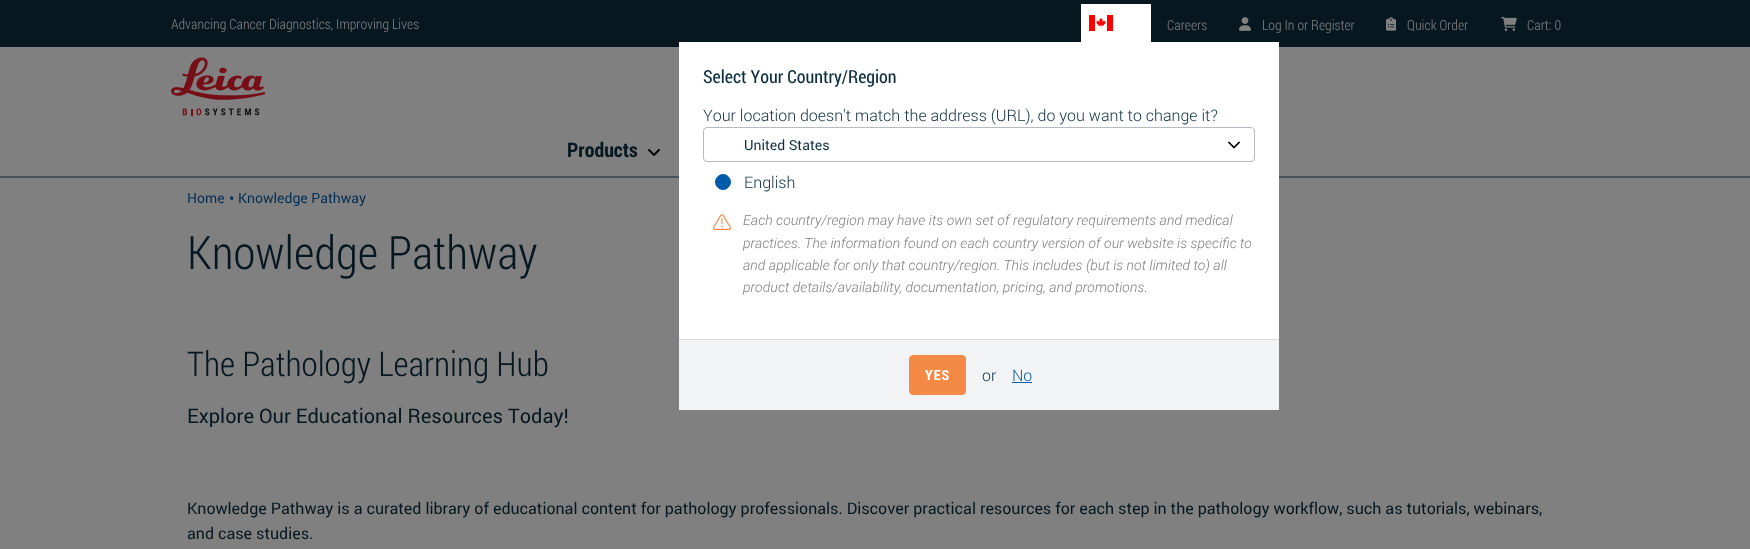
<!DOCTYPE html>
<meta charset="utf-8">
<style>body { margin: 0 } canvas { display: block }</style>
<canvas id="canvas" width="1750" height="549"></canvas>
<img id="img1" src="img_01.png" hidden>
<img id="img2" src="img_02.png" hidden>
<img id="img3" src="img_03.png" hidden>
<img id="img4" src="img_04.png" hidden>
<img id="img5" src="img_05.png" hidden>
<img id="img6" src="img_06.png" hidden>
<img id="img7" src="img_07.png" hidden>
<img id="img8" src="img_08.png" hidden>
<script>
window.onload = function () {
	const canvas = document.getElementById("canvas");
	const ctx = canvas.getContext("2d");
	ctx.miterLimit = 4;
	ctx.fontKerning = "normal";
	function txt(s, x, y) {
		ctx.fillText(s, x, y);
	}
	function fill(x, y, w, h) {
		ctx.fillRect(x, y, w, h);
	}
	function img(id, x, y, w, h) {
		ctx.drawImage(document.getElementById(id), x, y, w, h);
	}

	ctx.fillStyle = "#808080";
	fill(0, 0, 1750, 549);
	ctx.fillStyle = "#061720";
	fill(0, 0, 1750, 47);
	img("img1", 1239, 17, 12, 14);
	img("img2", 1386, 17, 10, 14);
	img("img3", 1501, 17, 16, 14);
	ctx.fillStyle = "#FFFFFF";
	fill(1081, 4, 70, 38);
	img("img4", 1089, 15, 24, 16);
	ctx.fillStyle = "#46535E";
	fill(0, 176, 1750, 2);
	ctx.fillStyle = "#FFFFFF";
	fill(679, 42, 600, 297);
	img("img5", 1228, 141, 12, 8);
	ctx.beginPath();
	ctx.roundRect(703.5, 127.5, 551, 34, 3.5);
	ctx.strokeStyle = "#B7BAC3";
	ctx.stroke();
	ctx.fillStyle = "#005CA9";
	ctx.beginPath();
	ctx.arc(723, 182, 7.5, 0, Math.PI * 2);
	ctx.fill();
	ctx.strokeStyle = "#005CA9";
	ctx.stroke();
	img("img6", 713, 214, 18, 16);
	ctx.fillStyle = "#F2F3F5";
	fill(679, 340, 600, 70);
	ctx.fillStyle = "#D8D8D8";
	fill(679, 339, 600, 1);
	ctx.fillStyle = "#F58A46";
	ctx.beginPath();
	ctx.roundRect(909.5, 355.5, 56, 39, 3.5);
	ctx.fill();
	ctx.strokeStyle = "#F58A46";
	ctx.stroke();
	ctx.fillStyle = "#005CA9";
	fill(1012, 382, 20, 1);
	img("img7", 171, 57, 95, 59);
	img("img8", 648, 149, 12, 7);
	ctx.font = "300 14px Roboto Condensed";
	ctx.fillStyle = "#808080";
	txt("Advancing Cancer Diagnostics, Improving Lives", 171, 29);
	txt("Careers", 1167, 30);
	txt("Log In or Register", 1262, 30);
	txt("Quick Order", 1407, 30);
	txt("Cart: 0", 1527, 30);
	ctx.font = "18px Roboto Condensed";
	ctx.fillStyle = "#0C2E40";
	txt("Select Your Country/Region", 703, 83);
	ctx.font = "300 16px Roboto";
	txt("Your location doesn't match the address (URL), do you want to change it?", 703, 121);
	ctx.font = "14px Roboto";
	txt("United States", 744, 150);
	ctx.font = "300 16px Roboto";
	txt("English", 744, 188);
	ctx.font = "italic 300 14px Roboto";
	ctx.fillStyle = "#808080";
	txt("Each country/region may have its own set of regulatory requirements and medical", 743, 225);
	txt("practices. The information found on each country version of our website is specific to", 743, 248);
	txt("and applicable for only that country/region. This includes (but is not limited to) all", 743, 270);
	txt("product details/availability, documentation, pricing, and promotions.", 743, 292);
	ctx.letterSpacing = "1px";
	ctx.font = "bold 14px Roboto Condensed";
	ctx.fillStyle = "#FFFFFF";
	txt("YES", 925, 380);
	ctx.letterSpacing = "0px";
	ctx.font = "300 16px Roboto";
	ctx.fillStyle = "#0C2E40";
	txt("or", 982, 381);
	ctx.fillStyle = "#005CA9";
	txt("No", 1012, 381);
	ctx.font = "bold 20px Roboto Condensed";
	ctx.fillStyle = "#061720";
	txt("Products", 567, 157);
	ctx.font = "14px Roboto";
	ctx.fillStyle = "#002E55";
	txt("Home", 187, 203);
	ctx.font = "16px Roboto";
	txt("•", 229, 204);
	ctx.font = "14px Roboto";
	txt("Knowledge Pathway", 238, 203);
	ctx.font = "300 46px Roboto Condensed";
	ctx.fillStyle = "#061720";
	txt("Knowledge Pathway", 187, 269);
	ctx.font = "300 34px Roboto Condensed";
	txt("The Pathology Learning Hub", 187, 376);
	ctx.font = "20px Roboto";
	txt("Explore Our Educational Resources Today!", 187, 423);
	ctx.font = "16px Roboto";
	txt("Knowledge Pathway is a curated library of educational content for pathology professionals. Discover practical resources for each step in the pathology workflow, such as tutorials, webinars,", 187, 514);
	txt("and case studies.", 187, 539);
};
</script>
